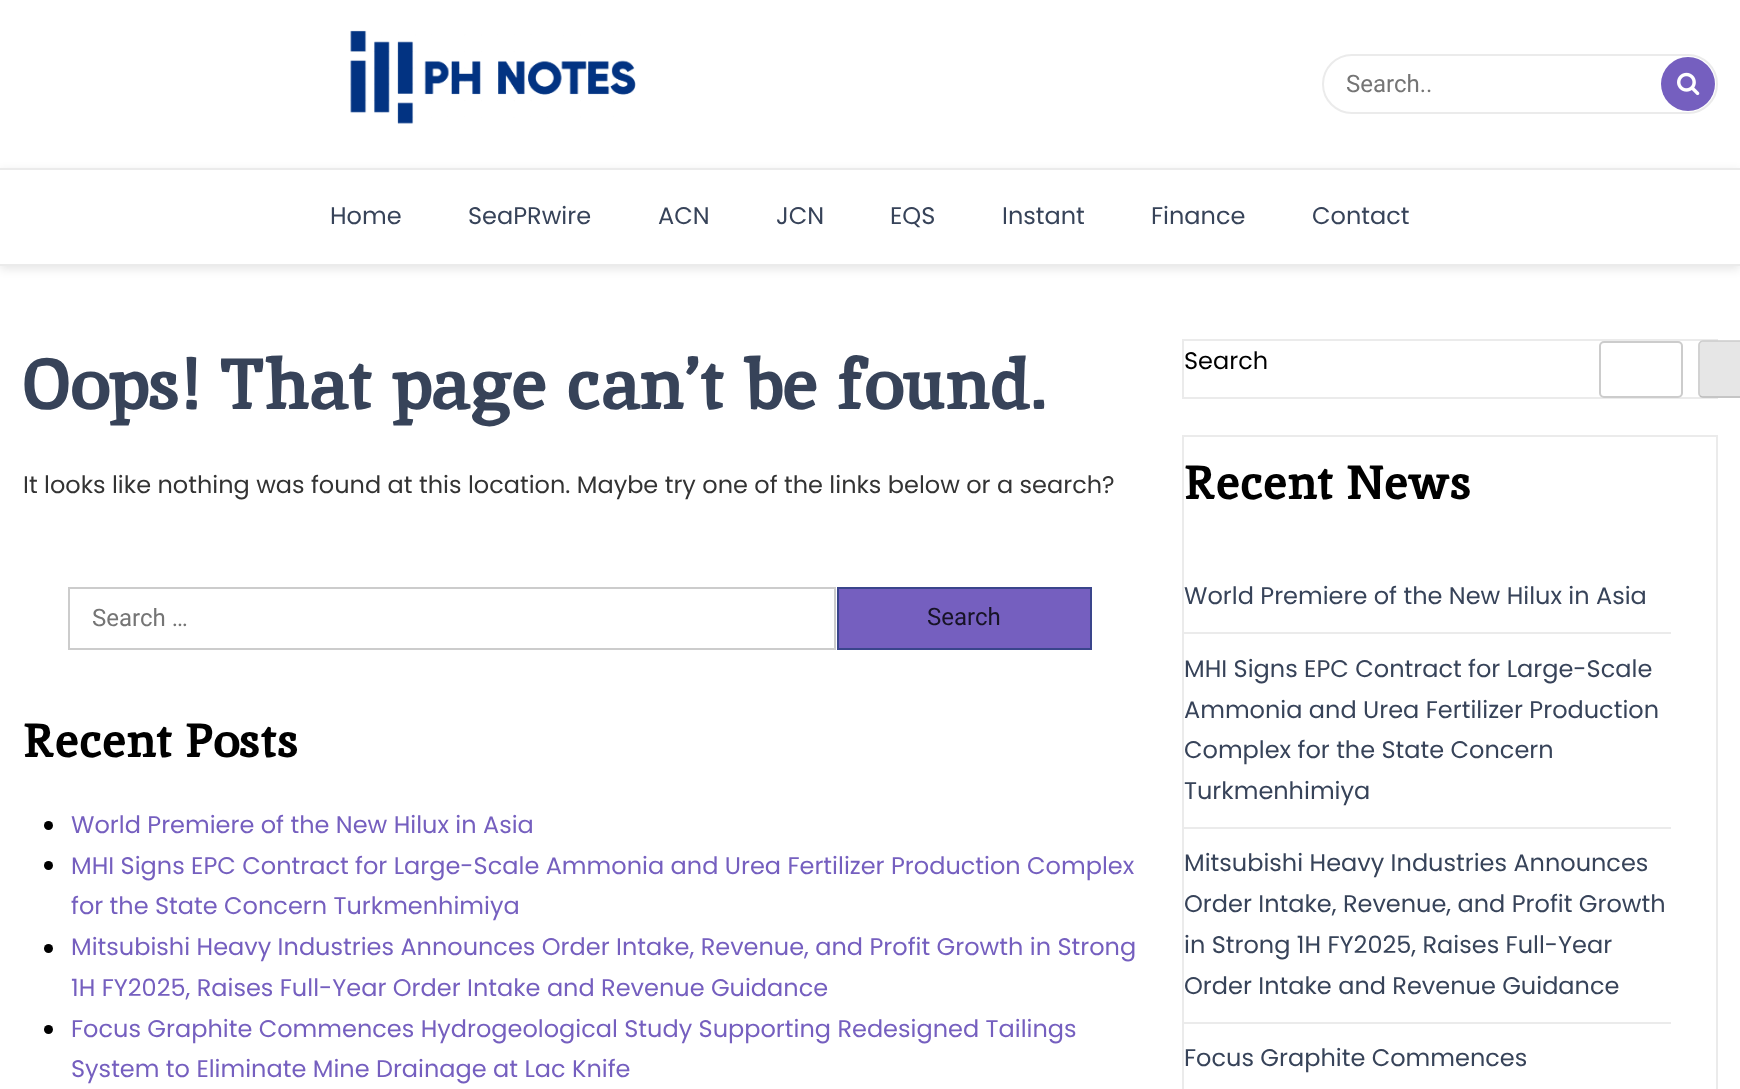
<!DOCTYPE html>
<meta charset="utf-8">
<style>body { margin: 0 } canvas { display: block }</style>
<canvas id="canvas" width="1740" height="1089"></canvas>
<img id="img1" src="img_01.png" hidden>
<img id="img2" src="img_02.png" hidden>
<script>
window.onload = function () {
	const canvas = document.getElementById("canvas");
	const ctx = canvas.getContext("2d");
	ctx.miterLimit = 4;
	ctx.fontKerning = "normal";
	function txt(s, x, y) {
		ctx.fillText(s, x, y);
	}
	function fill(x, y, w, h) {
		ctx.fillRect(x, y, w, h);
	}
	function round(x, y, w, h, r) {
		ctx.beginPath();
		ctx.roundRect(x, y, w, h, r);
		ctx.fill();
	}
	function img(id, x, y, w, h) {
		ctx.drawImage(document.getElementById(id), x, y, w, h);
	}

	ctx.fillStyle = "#FFFFFF";
	fill(0, 0, 1740, 1089);
	img("img1", 350, 30, 286, 94);
	ctx.beginPath();
	ctx.roundRect(1323, 55, 394, 58, 29);
	ctx.strokeStyle = "#EBEBEB";
	ctx.lineWidth = 2;
	ctx.stroke();
	ctx.fillStyle = "#755FBF";
	ctx.beginPath();
	ctx.arc(1688, 84, 27, 0, Math.PI * 2);
	ctx.fill();
	img("img2", 1677, 72, 23, 24);
	ctx.fillStyle = "rgba(0, 0, 0, 0.1)";
	ctx.filter = "blur(5px)";
	ctx.beginPath();
	ctx.rect(0, 171, 1740, 98);
	ctx.fill();
	ctx.filter = "none";
	ctx.fillStyle = "#FFFFFF";
	fill(0, 170, 1740, 94);
	ctx.fillStyle = "#EBEBEB";
	fill(0, 264, 1740, 2);
	fill(0, 168, 1740, 2);
	ctx.strokeStyle = "#CCCCCC";
	ctx.strokeRect(69, 588, 766, 61);
	ctx.fillStyle = "#755FBF";
	ctx.beginPath();
	ctx.rect(838, 588, 253, 61);
	ctx.fill();
	ctx.strokeStyle = "#3A458C";
	ctx.stroke();
	ctx.fillStyle = "#000000";
	ctx.beginPath();
	ctx.arc(48.5, 825.5, 4.5, 0, Math.PI * 2);
	ctx.fill();
	ctx.beginPath();
	ctx.arc(48.5, 865.5, 4.5, 0, Math.PI * 2);
	ctx.fill();
	ctx.beginPath();
	ctx.arc(48.5, 948.5, 4.5, 0, Math.PI * 2);
	ctx.fill();
	ctx.beginPath();
	ctx.arc(48.5, 1029.5, 4.5, 0, Math.PI * 2);
	ctx.fill();
	ctx.strokeStyle = "#EBEBEB";
	ctx.strokeRect(1183, 340, 534, 58);
	ctx.fillStyle = "#FFFFFF";
	ctx.beginPath();
	ctx.roundRect(1600, 342, 82, 55, 4);
	ctx.fill();
	ctx.strokeStyle = "#CCCCCC";
	ctx.stroke();
	ctx.fillStyle = "#E6E6E6";
	round(1698, 341, 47, 57, 5);
	ctx.beginPath();
	ctx.moveTo(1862.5, 395.5);
	ctx.bezierCurveTo(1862, 396.5, 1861, 397, 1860, 397);
	ctx.lineTo(1702.5, 397);
	ctx.bezierCurveTo(1701.5, 397, 1700.5, 396.5, 1700, 395.5);
	ctx.strokeStyle = "#BBBBBB";
	ctx.lineWidth = 1.5;
	ctx.stroke();
	ctx.beginPath();
	ctx.moveTo(1700, 395.5);
	ctx.bezierCurveTo(1699, 395, 1699, 394, 1699, 393);
	ctx.lineTo(1699, 345);
	ctx.bezierCurveTo(1699, 344, 1699, 343, 1700, 342.5);
	ctx.bezierCurveTo(1700.5, 341.5, 1701.5, 341, 1702.5, 341);
	ctx.lineTo(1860, 341);
	ctx.bezierCurveTo(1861, 341, 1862, 341.5, 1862.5, 342.5);
	ctx.bezierCurveTo(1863.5, 343, 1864, 344, 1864, 345);
	ctx.lineTo(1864, 393);
	ctx.bezierCurveTo(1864, 394, 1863.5, 395, 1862.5, 395.5);
	ctx.strokeStyle = "#CCCCCC";
	ctx.stroke();
	ctx.strokeStyle = "#EBEBEB";
	ctx.lineWidth = 2;
	ctx.strokeRect(1183, 436, 534, 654);
	ctx.fillStyle = "#EBEBEB";
	fill(1184, 632, 487, 2);
	fill(1184, 827, 487, 2);
	fill(1184, 1022, 487, 2);
	ctx.font = "24px Roboto";
	ctx.fillStyle = "#757575";
	txt("Search..", 1346, 92);
	ctx.font = "24px Poppins";
	ctx.fillStyle = "#374359";
	txt("Home", 330, 224);
	txt("SeaPRwire", 468, 224);
	txt("ACN", 658, 224);
	txt("JCN", 776, 224);
	txt("EQS", 890, 224);
	txt("Instant", 1002, 224);
	txt("Finance", 1151, 224);
	txt("Contact", 1312, 224);
	ctx.font = "bold 72px Inika";
	txt("Oops! That page can’t be found.", 23, 409);
	ctx.font = "24px Poppins";
	ctx.fillStyle = "#333333";
	txt("It looks like nothing was found at this location. Maybe try one of the links below or a search?", 23, 493);
	ctx.font = "24px Roboto";
	ctx.fillStyle = "#757575";
	txt("Search …", 92, 626);
	ctx.fillStyle = "#171326";
	txt("Search", 927, 625);
	ctx.font = "bold 48px Inika";
	ctx.fillStyle = "#000000";
	txt("Recent Posts", 23, 757);
	ctx.font = "24px Poppins";
	ctx.fillStyle = "#755FBF";
	txt("World Premiere of the New Hilux in Asia", 71, 833);
	txt("MHI Signs EPC Contract for Large-Scale Ammonia and Urea Fertilizer Production Complex", 71, 874);
	txt("for the State Concern Turkmenhimiya", 71, 914);
	txt("Mitsubishi Heavy Industries Announces Order Intake, Revenue, and Profit Growth in Strong", 71, 955);
	txt("1H FY2025, Raises Full-Year Order Intake and Revenue Guidance", 71, 996);
	txt("Focus Graphite Commences Hydrogeological Study Supporting Redesigned Tailings", 71, 1037);
	txt("System to Eliminate Mine Drainage at Lac Knife", 71, 1077);
	ctx.fillStyle = "#000000";
	txt("Search", 1184, 369);
	ctx.font = "bold 48px Inika";
	txt("Recent News", 1184, 499);
	ctx.font = "24px Poppins";
	ctx.fillStyle = "#374359";
	txt("World Premiere of the New Hilux in Asia", 1184, 604);
	txt("MHI Signs EPC Contract for Large-Scale", 1184, 677);
	txt("Ammonia and Urea Fertilizer Production", 1184, 718);
	txt("Complex for the State Concern", 1184, 758);
	txt("Turkmenhimiya", 1184, 799);
	txt("Mitsubishi Heavy Industries Announces", 1184, 871);
	txt("Order Intake, Revenue, and Profit Growth", 1184, 912);
	txt("in Strong 1H FY2025, Raises Full-Year", 1184, 953);
	txt("Order Intake and Revenue Guidance", 1184, 994);
	txt("Focus Graphite Commences", 1184, 1066);
};
</script>
